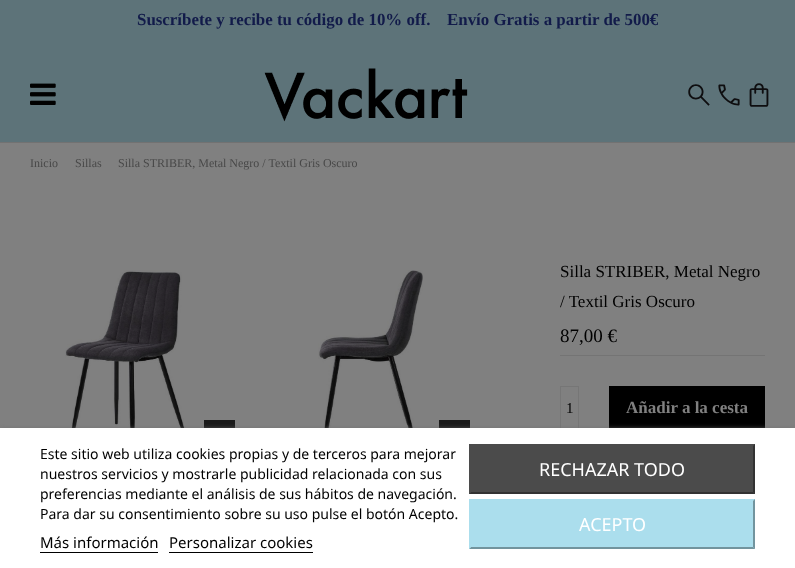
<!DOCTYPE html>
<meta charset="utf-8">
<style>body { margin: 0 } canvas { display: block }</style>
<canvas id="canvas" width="795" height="568"></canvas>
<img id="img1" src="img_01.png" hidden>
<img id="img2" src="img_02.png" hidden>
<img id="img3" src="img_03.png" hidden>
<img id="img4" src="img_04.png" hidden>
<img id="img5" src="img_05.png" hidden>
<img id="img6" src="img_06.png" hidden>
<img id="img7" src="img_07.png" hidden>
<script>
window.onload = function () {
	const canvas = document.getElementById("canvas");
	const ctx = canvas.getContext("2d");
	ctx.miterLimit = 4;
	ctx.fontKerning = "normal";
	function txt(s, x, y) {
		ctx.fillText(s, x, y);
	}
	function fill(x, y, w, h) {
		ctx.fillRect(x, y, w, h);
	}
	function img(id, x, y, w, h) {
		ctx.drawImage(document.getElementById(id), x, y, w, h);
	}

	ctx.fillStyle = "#808080";
	fill(0, 0, 795, 568);
	ctx.fillStyle = "#727272";
	fill(0, 142, 795, 1);
	ctx.fillStyle = "#5D7379";
	fill(0, 0, 795, 142);
	img("img1", 30, 83, 26, 22);
	img("img2", 264, 68, 204, 54);
	img("img3", 688, 84, 22, 22);
	img("img4", 718, 84, 22, 22);
	img("img5", 749, 83, 20, 24);
	img("img6", 65, 270, 121, 158);
	ctx.fillStyle = "#1A1A1A";
	fill(204, 420, 31, 8);
	img("img7", 318, 270, 105, 158);
	fill(439, 420, 31, 8);
	ctx.fillStyle = "#747474";
	fill(560, 355, 205, 1);
	ctx.strokeStyle = "#767676";
	ctx.strokeRect(560.5, 386.5, 18, 43);
	ctx.fillStyle = "#000000";
	fill(609, 386, 156, 42);
	ctx.fillStyle = "#707070";
	ctx.filter = "blur(2.5px)";
	ctx.beginPath();
	ctx.rect(0, 429, 795, 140);
	ctx.fill();
	ctx.filter = "none";
	ctx.fillStyle = "#FFFFFF";
	fill(0, 428, 795, 140);
	ctx.fillStyle = "#000000";
	fill(40, 552, 118, 1);
	fill(169, 552, 144, 1);
	ctx.fillStyle = "#4B4B4B";
	fill(469, 444, 286, 50);
	ctx.fillStyle = "#323232";
	ctx.beginPath();
	ctx.moveTo(755, 444);
	ctx.lineTo(755, 494);
	ctx.lineTo(753, 492);
	ctx.lineTo(753, 446);
	ctx.closePath();
	ctx.fill();
	ctx.beginPath();
	ctx.moveTo(755, 494);
	ctx.lineTo(469, 494);
	ctx.lineTo(471, 492);
	ctx.lineTo(753, 492);
	ctx.closePath();
	ctx.fill();
	ctx.fillStyle = "#4B4B4B";
	ctx.beginPath();
	ctx.moveTo(469, 494);
	ctx.lineTo(469, 444);
	ctx.lineTo(471, 446);
	ctx.lineTo(471, 492);
	ctx.closePath();
	ctx.fill();
	ctx.fillStyle = "#ABDEED";
	fill(469, 499, 286, 50);
	ctx.fillStyle = "#72949E";
	ctx.beginPath();
	ctx.moveTo(755, 499);
	ctx.lineTo(755, 549);
	ctx.lineTo(753, 547);
	ctx.lineTo(753, 501);
	ctx.closePath();
	ctx.fill();
	ctx.beginPath();
	ctx.moveTo(755, 549);
	ctx.lineTo(469, 549);
	ctx.lineTo(471, 547);
	ctx.lineTo(753, 547);
	ctx.closePath();
	ctx.fill();
	ctx.fillStyle = "#ABDEED";
	ctx.beginPath();
	ctx.moveTo(469, 549);
	ctx.lineTo(469, 499);
	ctx.lineTo(471, 501);
	ctx.lineTo(471, 547);
	ctx.closePath();
	ctx.fill();
	ctx.font = "bold 16.9px Liberation Serif";
	ctx.fillStyle = "#121B4A";
	txt("Suscríbete y recibe tu código de 10% off.", 137, 25);
	txt("Envío Gratis a partir de 500€", 447, 25);
	ctx.font = "12px Liberation Serif";
	ctx.fillStyle = "#484848";
	txt("Inicio", 30, 167);
	txt("Sillas", 75, 167);
	txt("Silla STRIBER, Metal Negro / Textil Gris Oscuro", 118, 167);
	ctx.font = "17px Liberation Serif";
	ctx.fillStyle = "#000000";
	txt("Silla STRIBER, Metal Negro", 560, 277);
	txt("/ Textil Gris Oscuro", 560, 307);
	ctx.font = "19px Liberation Serif";
	txt("87,00 €", 560, 342);
	ctx.font = "15px Liberation Serif";
	txt("1", 566, 413);
	ctx.font = "bold 17px Liberation Serif";
	ctx.fillStyle = "#808080";
	txt("Añadir a la cesta", 626, 413);
	ctx.font = "14px Noto Sans";
	ctx.fillStyle = "#000000";
	txt("Este sitio web utiliza cookies propias y de terceros para mejorar", 40, 459);
	txt("nuestros servicios y mostrarle publicidad relacionada con sus", 40, 479);
	txt("preferencias mediante el análisis de sus hábitos de navegación.", 40, 499);
	txt("Para dar su consentimiento sobre su uso pulse el botón Acepto.", 40, 519);
	ctx.font = "15px Noto Sans";
	txt("Más información", 40, 548);
	txt("Personalizar cookies", 169, 548);
	ctx.font = "18px Noto Sans";
	ctx.fillStyle = "#FFFFFF";
	txt("RECHAZAR TODO", 539, 476);
	txt("ACEPTO", 579, 531);
};
</script>
